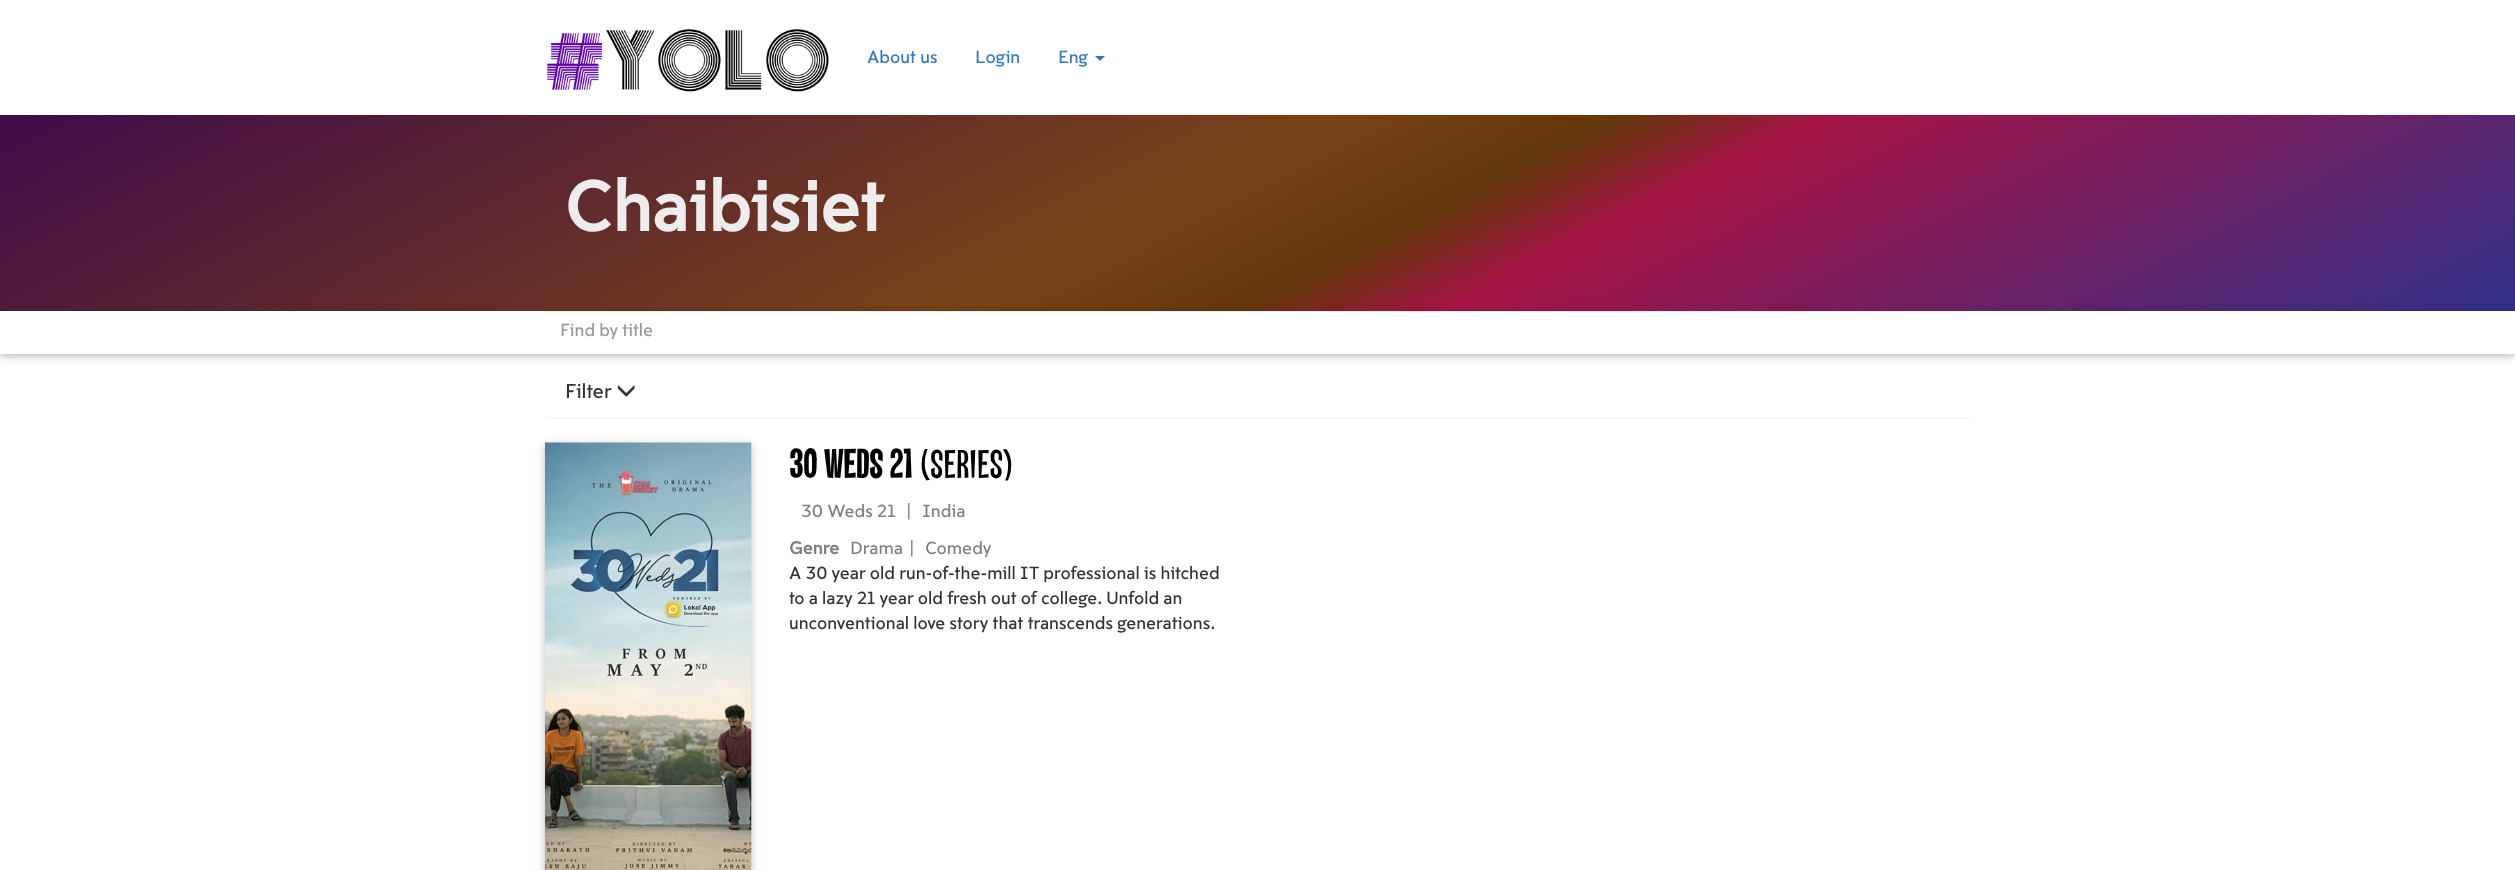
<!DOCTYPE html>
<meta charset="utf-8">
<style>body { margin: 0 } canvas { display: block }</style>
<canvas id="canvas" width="2515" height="870"></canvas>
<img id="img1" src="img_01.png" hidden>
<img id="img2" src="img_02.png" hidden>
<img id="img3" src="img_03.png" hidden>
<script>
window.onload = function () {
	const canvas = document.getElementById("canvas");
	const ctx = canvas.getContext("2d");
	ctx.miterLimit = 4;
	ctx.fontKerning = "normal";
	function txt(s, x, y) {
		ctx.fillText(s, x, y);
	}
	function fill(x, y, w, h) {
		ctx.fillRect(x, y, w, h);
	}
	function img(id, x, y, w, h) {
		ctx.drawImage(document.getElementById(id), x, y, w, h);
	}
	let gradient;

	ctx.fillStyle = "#FFFFFF";
	fill(0, 0, 2515, 870);
	img("img1", 547, 29, 282, 63);
	ctx.fillStyle = "#337AB7";
	ctx.beginPath();
	ctx.moveTo(1095, 56);
	ctx.lineTo(1105, 56);
	ctx.lineTo(1100, 61);
	ctx.closePath();
	ctx.fill();
	gradient = ctx.createLinearGradient(959, -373, 1556, 800);
	gradient.addColorStop(0, "#1E5799");
	gradient.addColorStop(0, "#400B49");
	gradient.addColorStop(0.46, "#7A4217");
	gradient.addColorStop(0.56, "#63370B");
	gradient.addColorStop(0.63, "#A51344");
	gradient.addColorStop(1, "#303189");
	ctx.fillStyle = gradient;
	fill(0, 115, 2515, 196);
	ctx.save();
	ctx.beginPath();
	ctx.moveTo(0, 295);
	ctx.lineTo(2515, 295);
	ctx.lineTo(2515, 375);
	ctx.lineTo(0, 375);
	ctx.closePath();
	ctx.moveTo(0, 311);
	ctx.lineTo(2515, 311);
	ctx.lineTo(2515, 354);
	ctx.lineTo(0, 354);
	ctx.closePath();
	ctx.clip("evenodd");
	ctx.fillStyle = "rgba(0, 0, 0, 0.12)";
	ctx.filter = "blur(6px)";
	ctx.beginPath();
	ctx.rect(0, 314, 2515, 42);
	ctx.fill();
	ctx.filter = "none";
	ctx.restore();
	ctx.save();
	ctx.beginPath();
	ctx.moveTo(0, 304);
	ctx.lineTo(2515, 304);
	ctx.lineTo(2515, 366);
	ctx.lineTo(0, 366);
	ctx.closePath();
	ctx.moveTo(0, 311);
	ctx.lineTo(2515, 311);
	ctx.lineTo(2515, 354);
	ctx.lineTo(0, 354);
	ctx.closePath();
	ctx.clip("evenodd");
	ctx.fillStyle = "rgba(0, 0, 0, 0.16)";
	ctx.filter = "blur(3px)";
	ctx.beginPath();
	ctx.rect(0, 314, 2515, 42);
	ctx.fill();
	ctx.filter = "none";
	ctx.restore();
	ctx.fillStyle = "#FFFFFF";
	fill(545, 353, 1425, 1);
	ctx.fillStyle = "#ECECEC";
	fill(545, 311, 1425, 1);
	ctx.fillStyle = "rgba(0, 0, 0, 0.05)";
	ctx.filter = "blur(0.5px)";
	ctx.beginPath();
	ctx.roundRect(545, 368, 1425, 51, 5);
	ctx.fill();
	ctx.filter = "none";
	ctx.fillStyle = "#FFFFFF";
	ctx.beginPath();
	ctx.roundRect(545.5, 366.5, 1424, 51, 4.5);
	ctx.fill();
	ctx.strokeStyle = "#FFFFFF";
	ctx.stroke();
	img("img2", 617, 385, 18, 12);
	ctx.fillStyle = "rgba(0, 0, 0, 0.12)";
	ctx.filter = "blur(6px)";
	ctx.beginPath();
	ctx.rect(545, 445, 206, 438);
	ctx.fill();
	ctx.filter = "none";
	ctx.fillStyle = "rgba(0, 0, 0, 0.16)";
	ctx.filter = "blur(3px)";
	ctx.beginPath();
	ctx.rect(545, 445, 206, 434);
	ctx.fill();
	ctx.filter = "none";
	img("img3", 545, 442, 207, 428);
	ctx.font = "17.5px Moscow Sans";
	ctx.fillStyle = "#337AB7";
	txt("About us", 867, 63);
	txt("Login", 975, 63);
	txt("Eng", 1058, 63);
	ctx.font = "bold 70px Moscow Sans";
	ctx.fillStyle = "#EDEDED";
	txt("Chaibisiet", 564, 231);
	ctx.font = "17.5px Moscow Sans";
	ctx.fillStyle = "#999999";
	txt("Find by title", 560, 336);
	ctx.font = "20px Moscow Sans";
	ctx.fillStyle = "#333333";
	txt("Filter", 565, 398);
	ctx.font = "bold 40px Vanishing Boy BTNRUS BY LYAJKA";
	ctx.fillStyle = "#000000";
	txt("30 Weds 21", 789, 478);
	ctx.font = "40px Vanishing Boy BTNRUS BY LYAJKA";
	txt("(Series)", 920, 478);
	ctx.font = "17.5px Moscow Sans";
	ctx.fillStyle = "#808080";
	txt("30 Weds 21", 801, 517);
	txt("|", 906, 517);
	txt("India", 922, 517);
	ctx.font = "bold 17.5px Moscow Sans";
	txt("Genre", 789, 554);
	ctx.font = "17.5px Moscow Sans";
	txt("Drama", 850, 554);
	txt("|", 909, 554);
	txt("Comedy", 925, 554);
	ctx.fillStyle = "#333333";
	txt("A 30 year old run-of-the-mill IT professional is hitched", 789, 579);
	txt("to a lazy 21 year old fresh out of college. Unfold an", 789, 604);
	txt("unconventional love story that transcends generations.", 789, 629);
};
</script>
